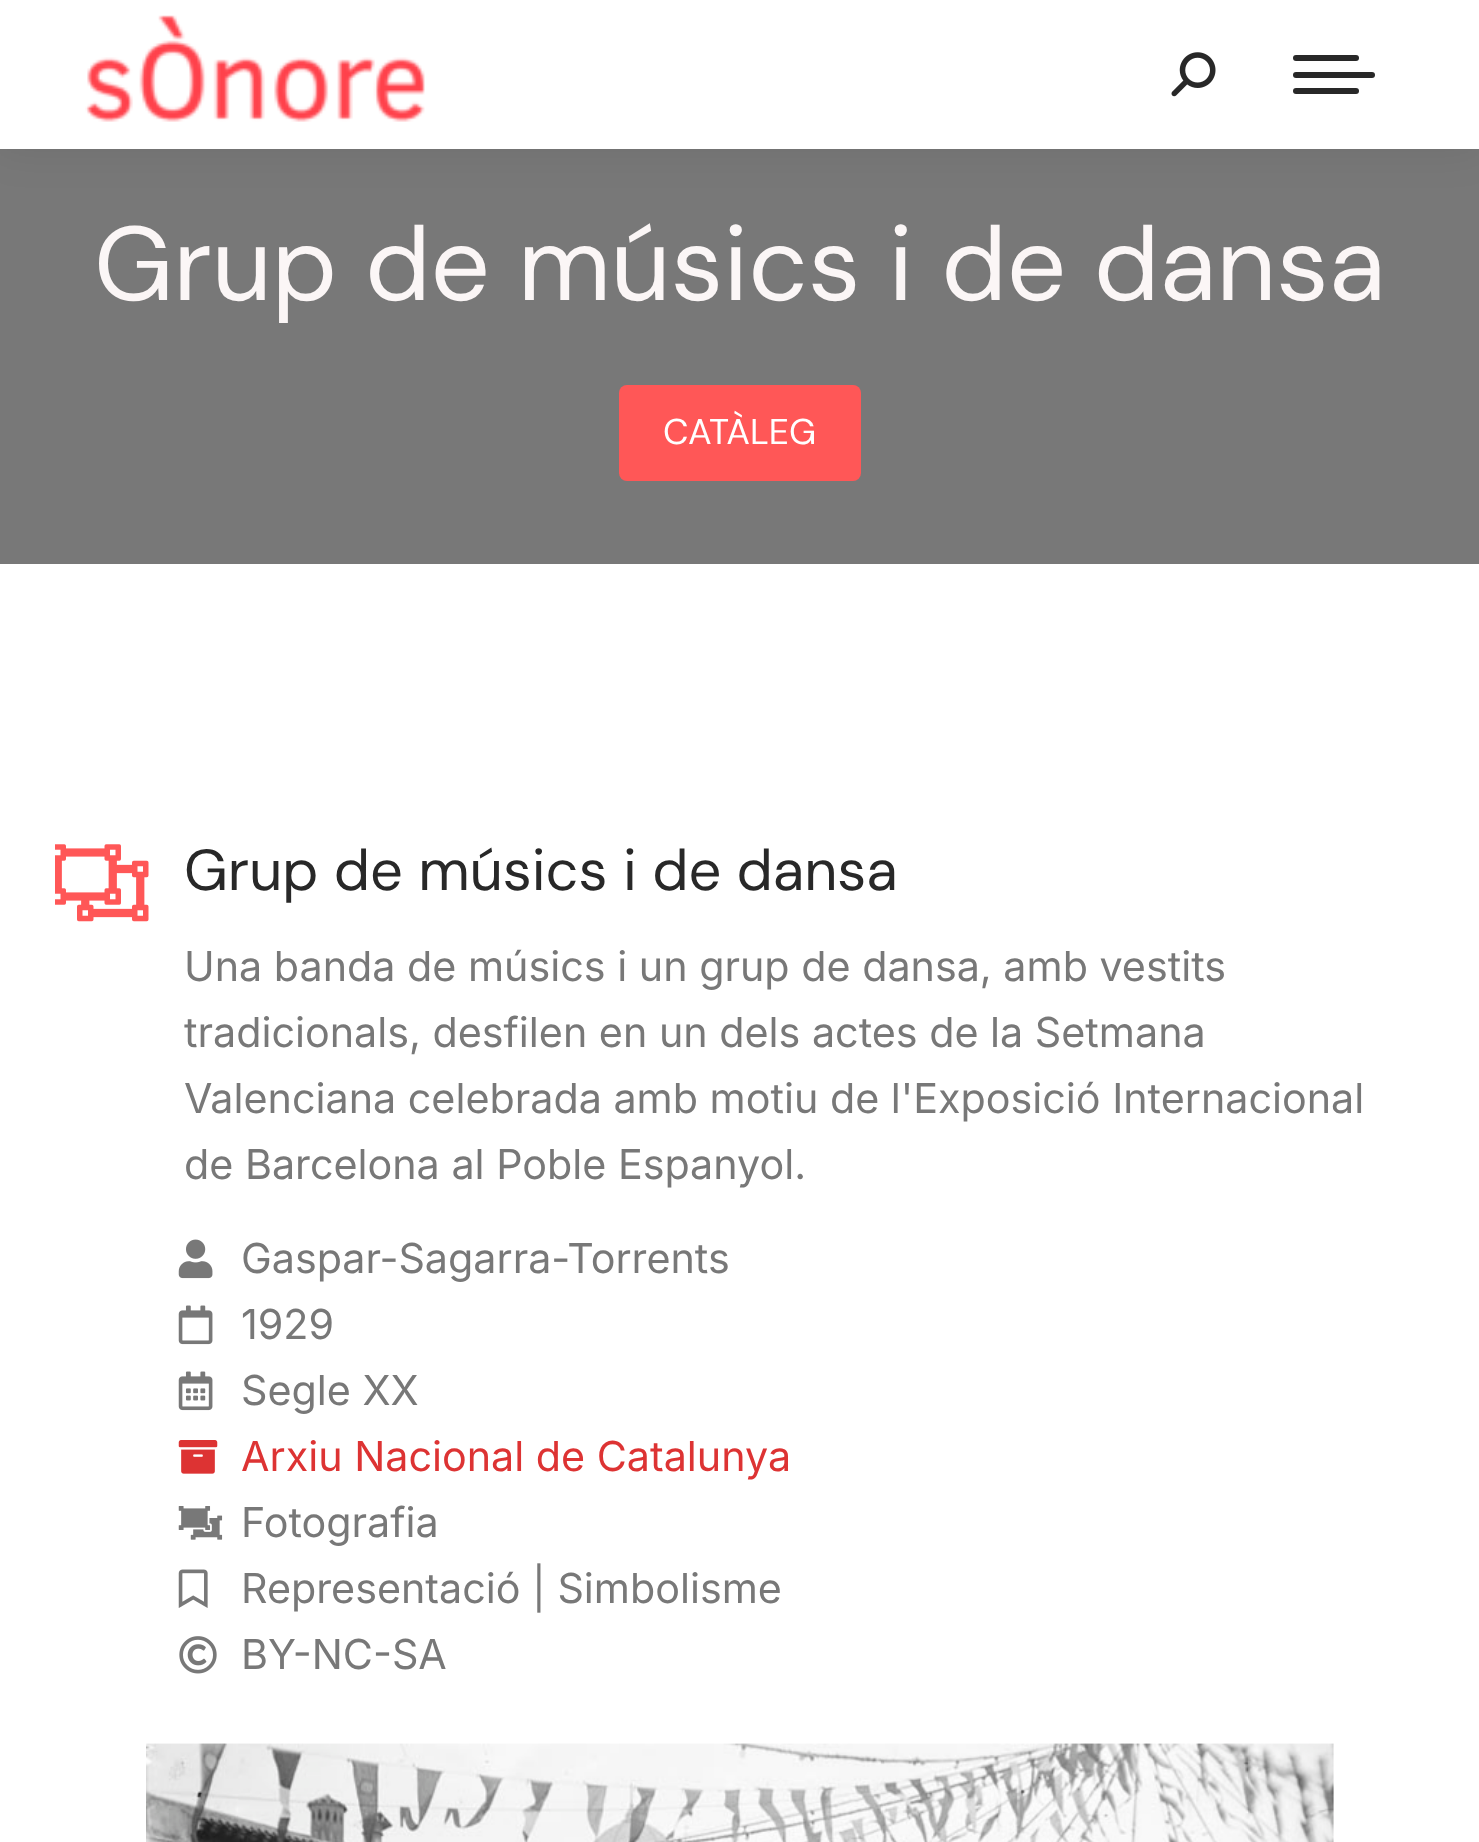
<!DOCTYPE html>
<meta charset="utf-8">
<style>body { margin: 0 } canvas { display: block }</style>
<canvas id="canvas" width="1479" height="1842"></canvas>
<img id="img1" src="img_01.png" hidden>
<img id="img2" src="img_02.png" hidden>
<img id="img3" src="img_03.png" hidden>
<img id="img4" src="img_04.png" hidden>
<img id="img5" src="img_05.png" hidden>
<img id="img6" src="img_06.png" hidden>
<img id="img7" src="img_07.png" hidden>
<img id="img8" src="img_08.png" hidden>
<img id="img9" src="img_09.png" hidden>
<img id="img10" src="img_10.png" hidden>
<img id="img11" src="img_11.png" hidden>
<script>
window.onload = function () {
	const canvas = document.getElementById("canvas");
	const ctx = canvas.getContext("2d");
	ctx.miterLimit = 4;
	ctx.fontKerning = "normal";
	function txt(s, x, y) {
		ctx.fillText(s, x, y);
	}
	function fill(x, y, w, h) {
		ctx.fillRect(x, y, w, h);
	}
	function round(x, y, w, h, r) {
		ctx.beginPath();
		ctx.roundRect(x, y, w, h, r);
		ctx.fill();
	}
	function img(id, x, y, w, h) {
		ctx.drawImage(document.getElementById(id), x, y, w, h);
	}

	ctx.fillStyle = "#FFFFFF";
	fill(0, 0, 1479, 1842);
	ctx.fillStyle = "#787878";
	fill(0, 149, 1479, 415);
	ctx.fillStyle = "rgba(0, 0, 0, 0.07)";
	ctx.filter = "blur(20.5px)";
	ctx.beginPath();
	ctx.rect(-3, -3, 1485, 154);
	ctx.fill();
	ctx.filter = "none";
	ctx.fillStyle = "#FFFFFF";
	fill(0, 0, 1479, 149);
	img("img1", 85, 15, 340, 107);
	img("img2", 1171, 52, 45, 45);
	ctx.fillStyle = "#282828";
	round(1293, 55, 66, 6, 3);
	round(1293, 72, 82, 6, 3);
	round(1293, 88, 66, 6, 3);
	ctx.fillStyle = "#FF5757";
	round(619, 385, 242, 96, 8);
	img("img3", 55, 844, 94, 78);
	img("img4", 178, 1239, 35, 40);
	img("img5", 178, 1305, 35, 40);
	img("img6", 178, 1371, 35, 40);
	img("img7", 178, 1440, 40, 34);
	img("img8", 178, 1506, 45, 34);
	img("img9", 178, 1569, 30, 39);
	img("img10", 179, 1636, 38, 38);
	img("img11", 146, 1743, 1188, 99);
	ctx.font = "104.5px DM Sans";
	ctx.fillStyle = "#FBF6F6";
	txt("Grup de músics i de dansa", 94, 300);
	ctx.font = "35.75px DM Sans";
	ctx.fillStyle = "#FFFFFF";
	txt("CATÀLEG", 663, 444);
	ctx.font = "57.75px DM Sans";
	ctx.fillStyle = "#282828";
	txt("Grup de músics i de dansa", 184, 890);
	ctx.font = "41.25px Inter";
	ctx.fillStyle = "#787878";
	txt("Una banda de músics i un grup de dansa, amb vestits", 184, 981);
	txt("tradicionals, desfilen en un dels actes de la Setmana", 184, 1047);
	txt("Valenciana celebrada amb motiu de l'Exposició Internacional", 184, 1113);
	txt("de Barcelona al Poble Espanyol.", 184, 1179);
	txt("Gaspar-Sagarra-Torrents", 241, 1273);
	txt("1929", 241, 1339);
	txt("Segle XX", 241, 1405);
	ctx.fillStyle = "#DD3333";
	txt("Arxiu Nacional de Catalunya", 241, 1471);
	ctx.fillStyle = "#787878";
	txt("Fotografia", 241, 1537);
	txt("Representació | Simbolisme", 241, 1603);
	txt("BY-NC-SA", 241, 1669);
};
</script>
